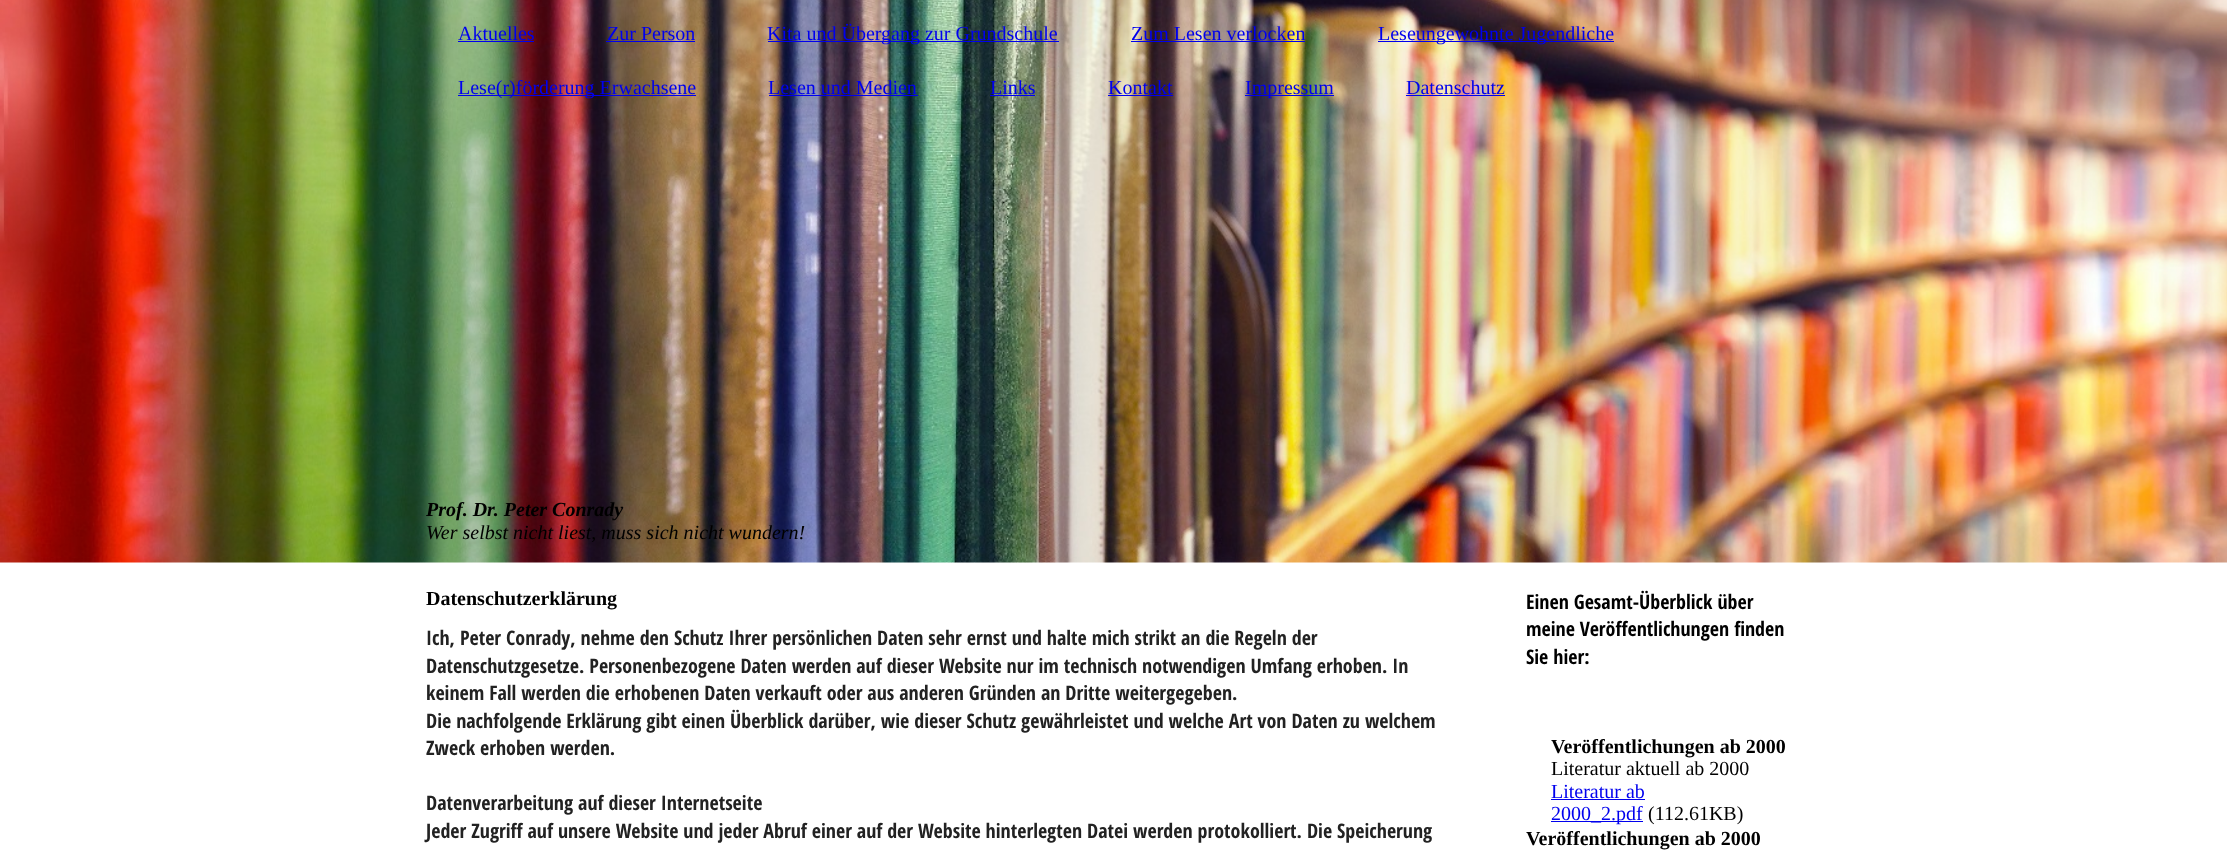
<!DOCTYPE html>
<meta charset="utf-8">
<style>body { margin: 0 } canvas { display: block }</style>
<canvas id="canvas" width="2227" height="857"></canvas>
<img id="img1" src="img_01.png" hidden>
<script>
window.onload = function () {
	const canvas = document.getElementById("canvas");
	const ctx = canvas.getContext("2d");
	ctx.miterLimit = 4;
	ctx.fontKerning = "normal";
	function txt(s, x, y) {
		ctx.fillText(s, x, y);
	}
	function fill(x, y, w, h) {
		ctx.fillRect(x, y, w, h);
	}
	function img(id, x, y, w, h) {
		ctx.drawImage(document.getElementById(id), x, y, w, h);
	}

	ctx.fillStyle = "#FFFFFF";
	fill(0, 0, 2227, 857);
	img("img1", 0, 0, 2227, 563);
	ctx.fillStyle = "#0000EE";
	fill(458, 41, 76, 1);
	fill(606, 41, 89, 1);
	fill(768, 41, 291, 1);
	fill(1131, 41, 174, 1);
	fill(1378, 41, 236, 1);
	fill(458, 95, 238, 1);
	fill(769, 95, 149, 1);
	fill(990, 95, 45, 1);
	fill(1108, 95, 65, 1);
	fill(1245, 95, 89, 1);
	fill(1406, 95, 99, 1);
	fill(1551, 799, 94, 1);
	fill(1551, 821, 92, 1);
	ctx.font = "20px Liberation Serif";
	txt("Aktuelles", 458, 40);
	txt("Zur Person", 607, 40);
	txt("Kita und Übergang zur Grundschule", 767, 40);
	txt("Zum Lesen verlocken", 1131, 40);
	txt("Leseungewohnte Jugendliche", 1378, 40);
	txt("Lese(r)förderung Erwachsene", 458, 94);
	txt("Lesen und Medien", 768, 94);
	txt("Links", 990, 94);
	txt("Kontakt", 1108, 94);
	txt("Impressum", 1245, 94);
	txt("Datenschutz", 1406, 94);
	ctx.font = "italic bold 20px Liberation Serif";
	ctx.fillStyle = "#000000";
	txt("Prof. Dr. Peter Conrady", 426, 516);
	ctx.font = "italic 20px Liberation Serif";
	txt("Wer selbst nicht liest, muss sich nicht wundern!", 426, 539);
	ctx.font = "bold 20px Liberation Serif";
	txt("Datenschutzerklärung", 426, 605);
	ctx.font = "bold 20px Open Sans Condensed";
	ctx.fillStyle = "#222222";
	txt("Ich, Peter Conrady, nehme den Schutz Ihrer persönlichen Daten sehr ernst und halte mich strikt an die Regeln der", 426, 645);
	txt("Datenschutzgesetze. Personenbezogene Daten werden auf dieser Website nur im technisch notwendigen Umfang erhoben. In", 426, 673);
	txt("keinem Fall werden die erhobenen Daten verkauft oder aus anderen Gründen an Dritte weitergegeben.", 426, 700);
	txt("Die nachfolgende Erklärung gibt einen Überblick darüber, wie dieser Schutz gewährleistet und welche Art von Daten zu welchem", 426, 728);
	txt("Zweck erhoben werden.", 426, 755);
	txt("Datenverarbeitung auf dieser Internetseite", 426, 810);
	txt("Jeder Zugriff auf unsere Website und jeder Abruf einer auf der Website hinterlegten Datei werden protokolliert. Die Speicherung", 426, 838);
	ctx.fillStyle = "#000000";
	txt("Einen Gesamt-Überblick über", 1526, 609);
	txt("meine Veröffentlichungen finden", 1526, 636);
	txt("Sie hier:", 1526, 664);
	ctx.font = "bold 20px Liberation Serif";
	txt("Veröffentlichungen ab 2000", 1551, 753);
	ctx.font = "20px Liberation Serif";
	txt("Literatur aktuell ab 2000", 1551, 775);
	ctx.fillStyle = "#0000EE";
	txt("Literatur ab", 1551, 798);
	txt("2000_2.pdf", 1551, 820);
	ctx.fillStyle = "#000000";
	txt("(112.61KB)", 1648, 820);
	ctx.font = "bold 20px Liberation Serif";
	txt("Veröffentlichungen ab 2000", 1526, 845);
};
</script>
